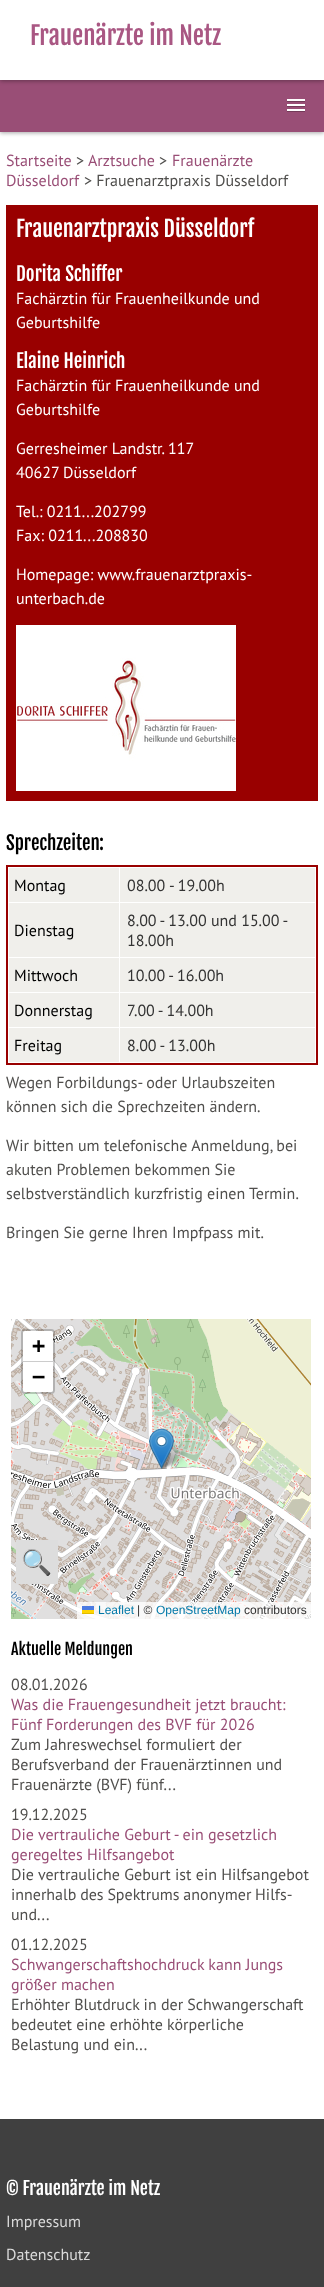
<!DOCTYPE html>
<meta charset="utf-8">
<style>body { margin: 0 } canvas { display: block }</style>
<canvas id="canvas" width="324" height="2287"></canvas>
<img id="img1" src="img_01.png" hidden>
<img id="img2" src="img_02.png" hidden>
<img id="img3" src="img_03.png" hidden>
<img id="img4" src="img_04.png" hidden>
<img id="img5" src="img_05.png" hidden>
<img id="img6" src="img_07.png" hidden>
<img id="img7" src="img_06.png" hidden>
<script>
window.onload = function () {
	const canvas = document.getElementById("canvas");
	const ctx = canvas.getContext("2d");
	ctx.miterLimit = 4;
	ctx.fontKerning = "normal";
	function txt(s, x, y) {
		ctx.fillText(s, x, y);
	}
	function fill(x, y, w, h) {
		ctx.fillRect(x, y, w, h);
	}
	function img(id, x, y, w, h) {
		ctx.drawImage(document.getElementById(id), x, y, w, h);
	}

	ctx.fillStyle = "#FFFFFF";
	fill(0, 0, 324, 2287);
	ctx.fillStyle = "rgba(0, 0, 0, 0.35)";
	ctx.filter = "blur(2px)";
	ctx.beginPath();
	ctx.rect(0, 81, 324, 52);
	ctx.fill();
	ctx.filter = "none";
	ctx.fillStyle = "#994E76";
	fill(0, 80, 324, 52);
	ctx.fillStyle = "rgba(0, 0, 0, 0.35)";
	ctx.filter = "blur(2px)";
	ctx.beginPath();
	ctx.rect(0, 1, 324, 80);
	ctx.fill();
	ctx.filter = "none";
	ctx.fillStyle = "#FFFFFF";
	fill(0, 0, 324, 80);
	ctx.fillStyle = "#733B59";
	fill(287, 101, 18, 1);
	ctx.fillStyle = "#FFFFFF";
	fill(287, 99, 18, 2);
	ctx.fillStyle = "#733B59";
	fill(287, 106, 18, 1);
	ctx.fillStyle = "#FFFFFF";
	fill(287, 104, 18, 2);
	ctx.fillStyle = "#733B59";
	fill(287, 111, 18, 1);
	ctx.fillStyle = "#FFFFFF";
	fill(287, 109, 18, 2);
	ctx.fillStyle = "#990000";
	fill(6, 205, 312, 596);
	img("img1", 16, 625, 220, 166);
	ctx.strokeStyle = "#990000";
	ctx.lineWidth = 2;
	ctx.strokeRect(7, 866, 310, 198);
	ctx.fillStyle = "#F0EFEB";
	fill(9, 868, 110, 34);
	fill(120, 868, 195, 34);
	fill(9, 903, 110, 54);
	fill(120, 903, 195, 54);
	fill(9, 958, 110, 34);
	fill(120, 958, 195, 34);
	fill(9, 993, 110, 34);
	fill(120, 993, 195, 34);
	fill(9, 1028, 110, 34);
	fill(120, 1028, 195, 34);
	img("img2", 11, 1319, 231, 48);
	img("img3", 242, 1319, 69, 48);
	img("img4", 11, 1367, 231, 252);
	img("img5", 242, 1367, 69, 252);
	img("img6", 159, 1441, 29, 28);
	img("img7", 149, 1428, 25, 41);
	ctx.beginPath();
	ctx.roundRect(22, 1330, 32, 63, 3);
	ctx.strokeStyle = "rgba(0, 0, 0, 0.2)";
	ctx.stroke();
	ctx.fillStyle = "#FFFFFF";
	ctx.beginPath();
	ctx.roundRect(23, 1331, 30, 31, [2, 2, 0, 0]);
	ctx.fill();
	ctx.fillStyle = "#CCCCCC";
	fill(23, 1361, 30, 1);
	ctx.fillStyle = "#FFFFFF";
	ctx.beginPath();
	ctx.roundRect(23, 1362, 30, 30, [0, 0, 2, 2]);
	ctx.fill();
	ctx.fillStyle = "rgba(255, 255, 255, 0.8)";
	fill(77, 1602, 234, 17);
	ctx.fillStyle = "#4C7BE1";
	fill(82, 1606, 12, 4);
	ctx.fillStyle = "#FFD500";
	fill(82, 1610, 12, 3);
	ctx.fillStyle = "#E0BC00";
	fill(82, 1613, 12, 1);
	ctx.fillStyle = "#DDDDDD";
	fill(16, 1540, 42, 44);
	ctx.fillStyle = "#404040";
	fill(0, 2119, 324, 168);
	ctx.font = "25px Fjalla One";
	ctx.fillStyle = "#A95783";
	txt("Frauenärzte im Netz", 30, 45);
	ctx.font = "16px PT Sans";
	ctx.fillStyle = "#994E76";
	txt("Startseite", 6, 166);
	ctx.fillStyle = "#504F4D";
	txt(">", 76, 166);
	ctx.fillStyle = "#994E76";
	txt("Arztsuche", 88, 166);
	ctx.fillStyle = "#504F4D";
	txt(">", 159, 166);
	ctx.fillStyle = "#994E76";
	txt("Frauenärzte", 172, 166);
	txt("Düsseldorf", 6, 186);
	ctx.fillStyle = "#504F4D";
	txt("> Frauenarztpraxis Düsseldorf", 84, 186);
	ctx.font = "22px Fjalla One";
	ctx.fillStyle = "#FFFFFF";
	txt("Frauenarztpraxis Düsseldorf", 16, 237);
	ctx.font = "19px Fjalla One";
	txt("Dorita Schiffer", 16, 281);
	ctx.font = "16px PT Sans";
	txt("Fachärztin für Frauenheilkunde und", 16, 304);
	txt("Geburtshilfe", 16, 328);
	ctx.font = "19px Fjalla One";
	txt("Elaine Heinrich", 16, 368);
	ctx.font = "16px PT Sans";
	txt("Fachärztin für Frauenheilkunde und", 16, 391);
	txt("Geburtshilfe", 16, 415);
	txt("Gerresheimer Landstr. 117", 16, 454);
	txt("40627 Düsseldorf", 16, 478);
	txt("Tel.: 0211...202799", 16, 517);
	txt("Fax: 0211...208830", 16, 541);
	txt("Homepage: www.frauenarztpraxis-", 16, 580);
	txt("unterbach.de", 16, 604);
	ctx.font = "19px Fjalla One";
	ctx.fillStyle = "#000000";
	txt("Sprechzeiten:", 6, 850);
	ctx.font = "16px PT Sans";
	txt("Montag", 14, 891);
	ctx.fillStyle = "#333333";
	txt("08.00", 127, 891);
	txt("- 19.00h", 169, 891);
	ctx.fillStyle = "#000000";
	txt("Dienstag", 14, 936);
	ctx.fillStyle = "#333333";
	txt("8.00 - 13.00 und 15.00 -", 127, 926);
	txt("18.00h", 127, 946);
	ctx.fillStyle = "#000000";
	txt("Mittwoch", 14, 981);
	ctx.fillStyle = "#333333";
	txt("10.00 - 16.00h", 127, 981);
	ctx.fillStyle = "#000000";
	txt("Donnerstag", 14, 1016);
	ctx.fillStyle = "#333333";
	txt("7.00 - 14.00h", 127, 1016);
	ctx.fillStyle = "#000000";
	txt("Freitag", 14, 1051);
	ctx.fillStyle = "#333333";
	txt("8.00 - 13.00h", 127, 1051);
	ctx.fillStyle = "#504F4D";
	txt("Wegen Forbildungs- oder Urlaubszeiten", 6, 1088);
	txt("können sich die Sprechzeiten ändern.", 6, 1112);
	txt("Wir bitten um telefonische Anmeldung, bei", 6, 1151);
	txt("akuten Problemen bekommen Sie", 6, 1175);
	txt("selbstverständlich kurzfristig einen Termin.", 6, 1199);
	txt("Bringen Sie gerne Ihren Impfpass mit.", 6, 1238);
	ctx.font = "bold 22px DejaVu Sans Mono";
	ctx.fillStyle = "#000000";
	txt("+", 32, 1353);
	txt("−", 32, 1384);
	ctx.font = "12px Liberation Sans";
	ctx.fillStyle = "#0078A8";
	txt("Leaflet", 98, 1614);
	ctx.fillStyle = "#333333";
	txt("| ©", 137, 1614);
	ctx.fillStyle = "#0078A8";
	txt("OpenStreetMap", 156, 1614);
	ctx.fillStyle = "#333333";
	txt("contributors", 244, 1614);
	ctx.font = "25px Noto Color Emoji";
	ctx.fillStyle = "#FFFFFF";
	txt("🔍", 21, 1571);
	ctx.font = "16px Fjalla One";
	ctx.fillStyle = "#000000";
	txt("Aktuelle Meldungen", 11, 1655);
	ctx.font = "16px PT Sans";
	ctx.fillStyle = "#504F4D";
	txt("08.01.2026", 11, 1690);
	ctx.fillStyle = "#994E76";
	txt("Was die Frauengesundheit jetzt braucht:", 11, 1710);
	txt("Fünf Forderungen des BVF für 2026", 11, 1730);
	ctx.fillStyle = "#504F4D";
	txt("Zum Jahreswechsel formuliert der", 11, 1750);
	txt("Berufsverband der Frauenärztinnen und", 11, 1770);
	txt("Frauenärzte (BVF) fünf...", 11, 1790);
	txt("19.12.2025", 11, 1820);
	ctx.fillStyle = "#994E76";
	txt("Die vertrauliche Geburt - ein gesetzlich", 11, 1840);
	txt("geregeltes Hilfsangebot", 11, 1860);
	ctx.fillStyle = "#504F4D";
	txt("Die vertrauliche Geburt ist ein Hilfsangebot", 11, 1880);
	ctx.wordSpacing = "-0.5px";
	txt("innerhalb des Spektrums anonymer Hilfs-", 11, 1900);
	ctx.wordSpacing = "0px";
	txt("und...", 11, 1920);
	txt("01.12.2025", 11, 1950);
	ctx.fillStyle = "#994E76";
	txt("Schwangerschaftshochdruck kann Jungs", 11, 1970);
	txt("größer machen", 11, 1990);
	ctx.fillStyle = "#504F4D";
	txt("Erhöhter Blutdruck in der Schwangerschaft", 11, 2010);
	txt("bedeutet eine erhöhte körperliche", 11, 2030);
	txt("Belastung und ein...", 11, 2050);
	ctx.save();
	ctx.beginPath();
	ctx.rect(6, 2179, 312, 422);
	ctx.clip();
	ctx.font = "18px Fjalla One";
	ctx.fillStyle = "#FFFFFF";
	txt("© Frauenärzte im Netz", 6, 2195);
	ctx.restore();
	ctx.fillStyle = "#D9D9D9";
	txt("Impressum", 6, 2227);
	txt("Datenschutz", 6, 2260);
};
</script>
